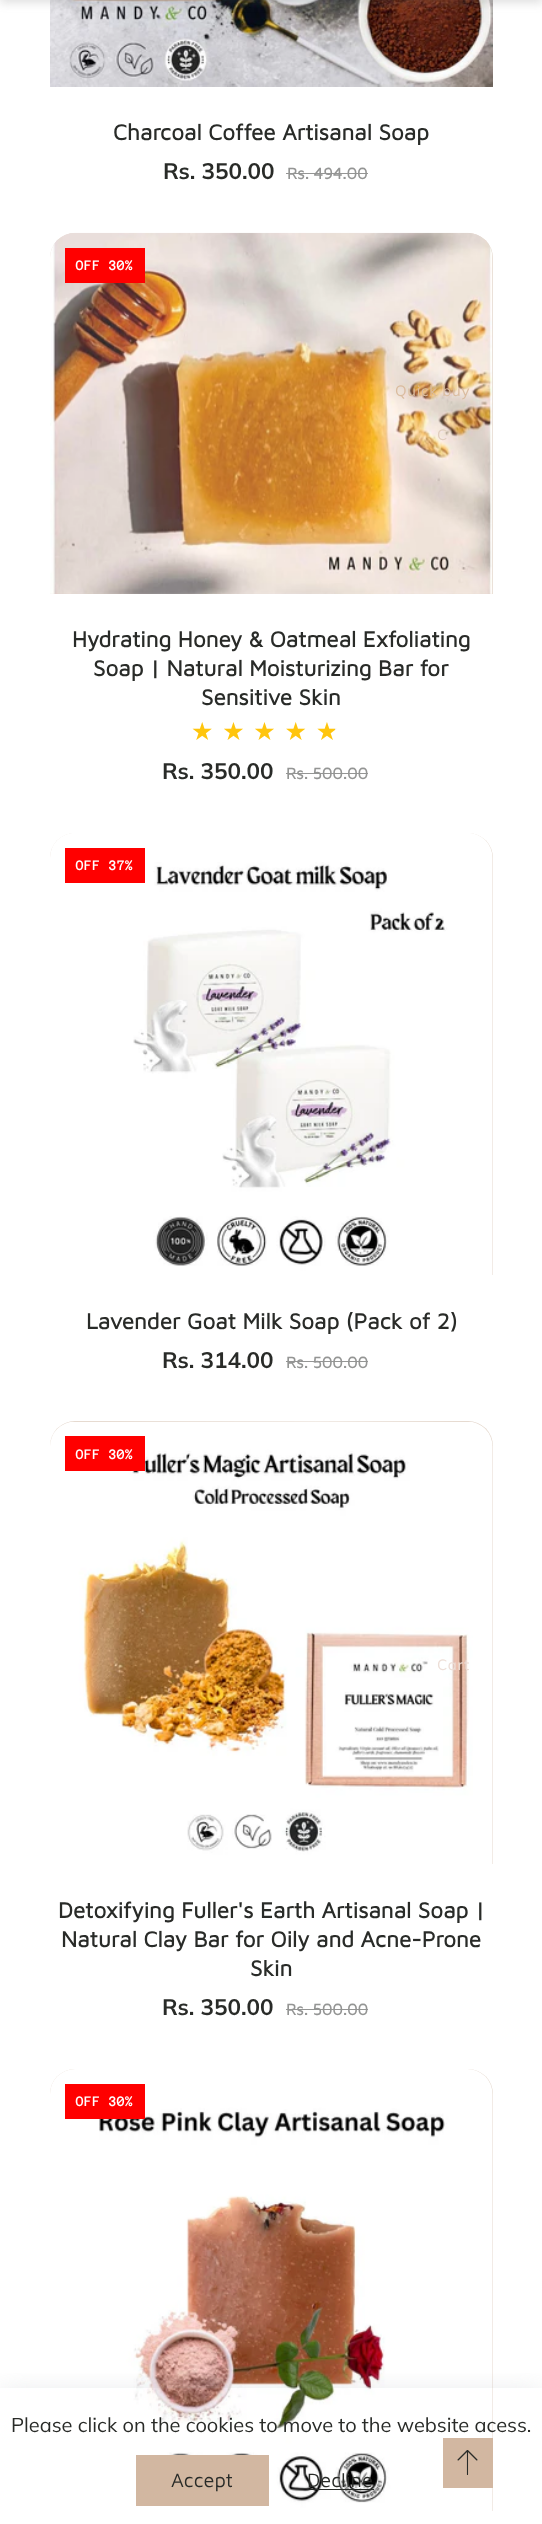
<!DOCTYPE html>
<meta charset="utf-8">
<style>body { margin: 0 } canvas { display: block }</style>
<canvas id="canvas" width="542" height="2524"></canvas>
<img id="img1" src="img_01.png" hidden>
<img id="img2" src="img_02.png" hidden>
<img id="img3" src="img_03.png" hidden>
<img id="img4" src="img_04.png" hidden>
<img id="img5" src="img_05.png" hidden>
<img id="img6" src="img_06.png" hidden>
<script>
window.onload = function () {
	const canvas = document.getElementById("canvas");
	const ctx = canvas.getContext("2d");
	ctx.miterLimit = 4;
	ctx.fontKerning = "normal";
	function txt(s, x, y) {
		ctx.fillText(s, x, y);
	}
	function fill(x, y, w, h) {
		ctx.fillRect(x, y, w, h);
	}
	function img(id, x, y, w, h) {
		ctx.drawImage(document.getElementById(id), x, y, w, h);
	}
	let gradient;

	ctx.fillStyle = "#FFFFFF";
	fill(0, 0, 542, 2524);
	img("img1", 50, 0, 443, 87);
	ctx.fillStyle = "rgba(99, 99, 99, 0.2)";
	ctx.filter = "blur(5px)";
	ctx.beginPath();
	ctx.rect(0, -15, 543, 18);
	ctx.fill();
	ctx.filter = "none";
	ctx.fillStyle = "#949594";
	fill(286, 173, 82, 1);
	ctx.fillStyle = "#E4D7CC";
	ctx.beginPath();
	ctx.roundRect(50, 233, 443, 361, [25, 25, 0, 0]);
	ctx.fill();
	gradient = ctx.createLinearGradient(50, 413, 493, 413);
	gradient.addColorStop(0, "rgba(255, 255, 255, 0)");
	gradient.addColorStop(0.2, "rgba(255, 255, 255, 0.2)");
	gradient.addColorStop(0.6, "rgba(255, 255, 255, 0.5)");
	gradient.addColorStop(1, "rgba(255, 255, 255, 0)");
	ctx.fillStyle = gradient;
	fill(72, 233, 404, 361);
	img("img2", 50, 232, 443, 362);
	ctx.fillStyle = "#FF0000";
	fill(65, 248, 80, 35);
	ctx.fillStyle = "#949594";
	fill(286, 773, 82, 1);
	ctx.fillStyle = "#E4D7CC";
	ctx.beginPath();
	ctx.roundRect(50, 833, 443, 442, [25, 25, 0, 0]);
	ctx.fill();
	gradient = ctx.createLinearGradient(50, 1054, 493, 1054);
	gradient.addColorStop(0, "rgba(255, 255, 255, 0)");
	gradient.addColorStop(0.2, "rgba(255, 255, 255, 0.2)");
	gradient.addColorStop(0.6, "rgba(255, 255, 255, 0.5)");
	gradient.addColorStop(1, "rgba(255, 255, 255, 0)");
	ctx.fillStyle = gradient;
	fill(72, 833, 411, 6);
	img("img3", 50, 833, 443, 442);
	ctx.fillStyle = "#FF0000";
	fill(65, 848, 80, 35);
	ctx.fillStyle = "#949594";
	fill(286, 1361, 82, 1);
	ctx.fillStyle = "#E4D7CC";
	ctx.beginPath();
	ctx.roundRect(50, 1421, 443, 443, [25, 25, 0, 0]);
	ctx.fill();
	gradient = ctx.createLinearGradient(50, 1643, 493, 1643);
	gradient.addColorStop(0, "rgba(255, 255, 255, 0)");
	gradient.addColorStop(0.2, "rgba(255, 255, 255, 0.2)");
	gradient.addColorStop(0.6, "rgba(255, 255, 255, 0.5)");
	gradient.addColorStop(1, "rgba(255, 255, 255, 0)");
	ctx.fillStyle = gradient;
	fill(72, 1421, 404, 8);
	img("img4", 50, 1422, 443, 442);
	ctx.fillStyle = "#FF0000";
	fill(65, 1436, 80, 35);
	ctx.fillStyle = "#949594";
	fill(286, 2009, 82, 1);
	ctx.fillStyle = "#E4D7CC";
	ctx.beginPath();
	ctx.roundRect(50, 2069, 443, 442, [25, 25, 0, 0]);
	ctx.fill();
	gradient = ctx.createLinearGradient(50, 2290, 493, 2290);
	gradient.addColorStop(0, "rgba(255, 255, 255, 0)");
	gradient.addColorStop(0.2, "rgba(255, 255, 255, 0.2)");
	gradient.addColorStop(0.6, "rgba(255, 255, 255, 0.5)");
	gradient.addColorStop(1, "rgba(255, 255, 255, 0)");
	ctx.fillStyle = gradient;
	fill(72, 2069, 404, 8);
	img("img5", 50, 2069, 443, 442);
	ctx.fillStyle = "#FF0000";
	fill(65, 2084, 80, 35);
	ctx.fillStyle = "#D2B7A1";
	fill(443, 2438, 50, 50);
	img("img6", 457, 2450, 21, 25);
	ctx.save();
	ctx.beginPath();
	ctx.rect(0, 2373, 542, 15);
	ctx.clip();
	ctx.fillStyle = "rgba(149, 157, 165, 0.4)";
	ctx.filter = "blur(15px)";
	ctx.beginPath();
	ctx.rect(0, 2398, 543, 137);
	ctx.fill();
	ctx.filter = "none";
	ctx.restore();
	fill(136, 2455, 133, 51);
	ctx.fillStyle = "#292B28";
	fill(308, 2489, 66, 1);
	ctx.font = "bold 22.5px Maven Pro";
	txt("Charcoal Coffee Artisanal Soap", 113, 140);
	ctx.font = "bold 22.5px Muli";
	txt("Rs. 350.00", 163, 179);
	ctx.font = "bold 16.25px Maven Pro";
	ctx.fillStyle = "#949594";
	txt("Rs. 494.00", 287, 179);
	ctx.font = "bold 15px Anonymous Pro";
	ctx.fillStyle = "#FFFFFF";
	txt("OFF 30%", 76, 270);
	ctx.letterSpacing = "0.75px";
	ctx.font = "15px Muli";
	ctx.fillStyle = "#DABC9F";
	txt("Quick buy", 395, 396);
	ctx.fillStyle = "#E1CEBE";
	txt("C", 437, 440);
	ctx.letterSpacing = "0px";
	ctx.font = "bold 22.5px Maven Pro";
	ctx.fillStyle = "#292B28";
	txt("Hydrating Honey & Oatmeal Exfoliating", 72, 647);
	txt("Soap | Natural Moisturizing Bar for", 93, 676);
	txt("Sensitive Skin", 201, 705);
	ctx.letterSpacing = "8.75px";
	ctx.font = "25px DejaVu Sans";
	gradient = ctx.createLinearGradient(191, 732, 346, 732);
	gradient.addColorStop(0.93, "#FFC50D");
	gradient.addColorStop(0.93, "#DFDFDF");
	ctx.fillStyle = gradient;
	txt("★★★★★", 191, 740);
	ctx.letterSpacing = "0px";
	ctx.font = "bold 22.5px Muli";
	ctx.fillStyle = "#292B28";
	txt("Rs. 350.00", 162, 779);
	ctx.font = "bold 16.25px Maven Pro";
	ctx.fillStyle = "#949594";
	txt("Rs. 500.00", 286, 779);
	ctx.font = "bold 15px Anonymous Pro";
	ctx.fillStyle = "#FFFFFF";
	txt("OFF 37%", 76, 870);
	ctx.font = "bold 22.5px Maven Pro";
	ctx.fillStyle = "#292B28";
	txt("Lavender Goat Milk Soap (Pack of 2)", 86, 1329);
	ctx.font = "bold 22.5px Muli";
	txt("Rs. 314.00", 162, 1368);
	ctx.font = "bold 16.25px Maven Pro";
	ctx.fillStyle = "#949594";
	txt("Rs. 500.00", 286, 1368);
	ctx.font = "bold 15px Anonymous Pro";
	ctx.fillStyle = "#FFFFFF";
	txt("OFF 30%", 76, 1459);
	ctx.letterSpacing = "0.75px";
	ctx.font = "15px Muli";
	ctx.fillStyle = "#EDDED7";
	txt("Cart", 437, 1670);
	ctx.letterSpacing = "0px";
	ctx.font = "bold 22.5px Maven Pro";
	ctx.fillStyle = "#292B28";
	txt("Detoxifying Fuller's Earth Artisanal Soap |", 58, 1918);
	txt("Natural Clay Bar for Oily and Acne-Prone", 61, 1947);
	txt("Skin", 250, 1976);
	ctx.font = "bold 22.5px Muli";
	txt("Rs. 350.00", 162, 2015);
	ctx.font = "bold 16.25px Maven Pro";
	ctx.fillStyle = "#949594";
	txt("Rs. 500.00", 286, 2015);
	ctx.font = "bold 15px Anonymous Pro";
	ctx.fillStyle = "#FFFFFF";
	txt("OFF 30%", 76, 2106);
	ctx.font = "20px Muli";
	ctx.fillStyle = "#292B28";
	txt("Please click on the cookies to move to the website acess.", 11, 2432);
	ctx.font = "20px Maven Pro";
	txt("Accept", 171, 2487);
	txt("Decline", 307, 2487);
};
</script>
